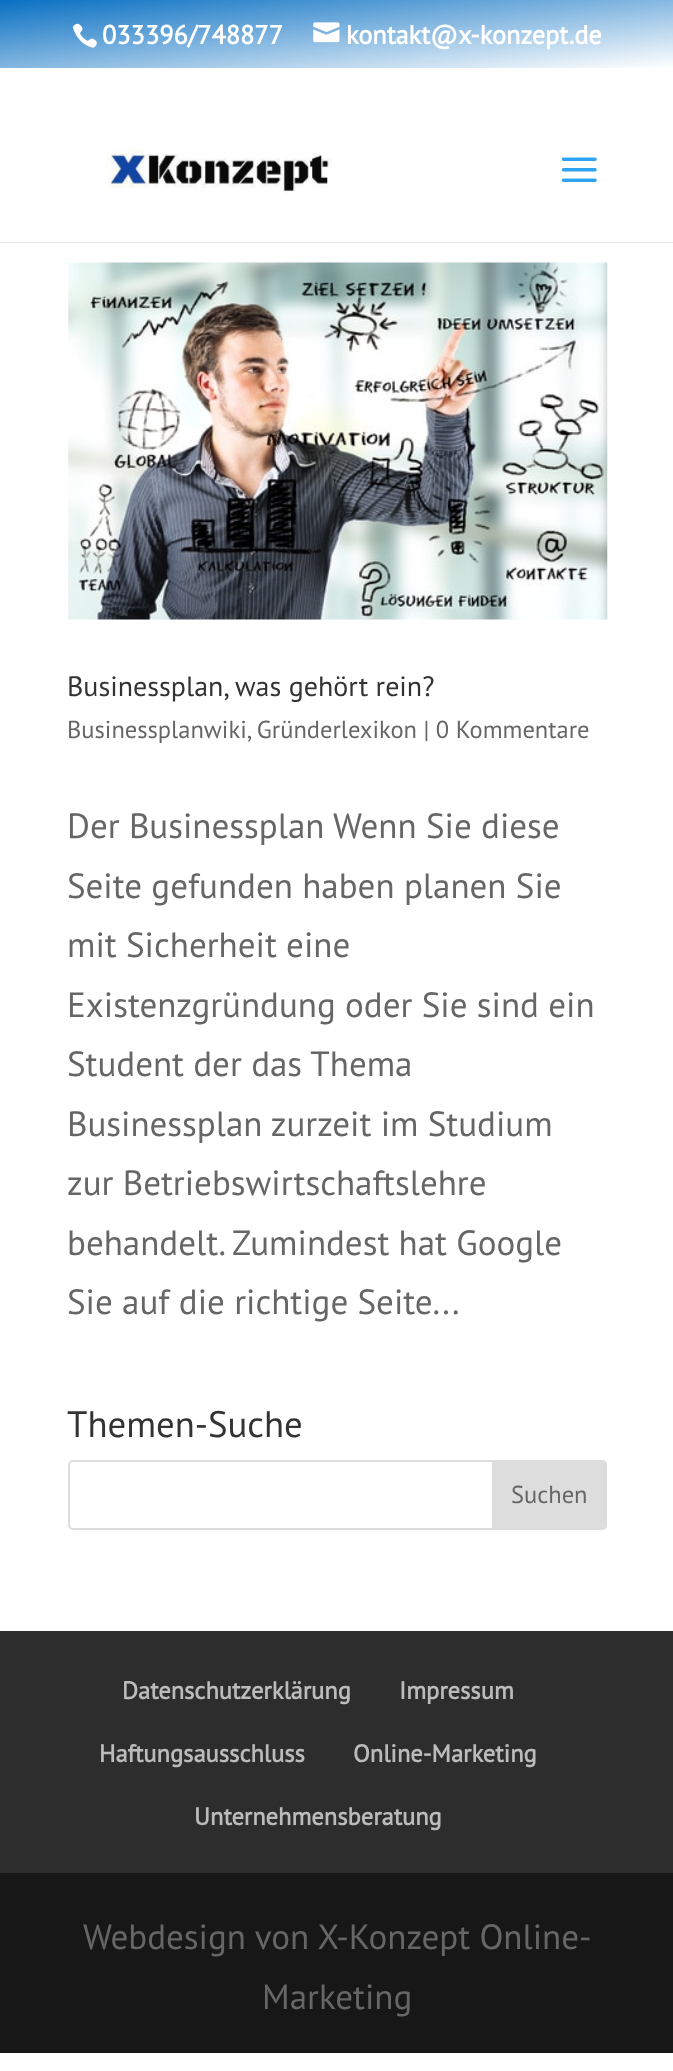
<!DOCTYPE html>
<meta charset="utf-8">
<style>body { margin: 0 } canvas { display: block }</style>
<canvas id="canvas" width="673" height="2071"></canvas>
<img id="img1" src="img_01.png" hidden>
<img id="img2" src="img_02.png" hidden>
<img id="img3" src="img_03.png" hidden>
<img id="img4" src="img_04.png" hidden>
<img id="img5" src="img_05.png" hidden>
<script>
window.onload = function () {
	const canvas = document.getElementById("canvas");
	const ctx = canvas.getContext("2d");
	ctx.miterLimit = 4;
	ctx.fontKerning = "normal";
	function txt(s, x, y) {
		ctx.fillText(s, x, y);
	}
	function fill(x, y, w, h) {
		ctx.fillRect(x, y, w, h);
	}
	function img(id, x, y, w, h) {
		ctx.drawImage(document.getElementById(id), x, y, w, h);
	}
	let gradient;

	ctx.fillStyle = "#FFFFFF";
	fill(0, 0, 673, 2071);
	gradient = ctx.createLinearGradient(330, -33, 344, 102);
	gradient.addColorStop(0, "#0C71C3");
	gradient.addColorStop(1, "#FFFFFF");
	ctx.fillStyle = gradient;
	fill(0, 0, 673, 68);
	img("img1", 72, 23, 25, 25);
	img("img2", 313, 22, 27, 21);
	ctx.fillStyle = "#E6E6E6";
	ctx.beginPath();
	ctx.moveTo(0, 242);
	ctx.lineTo(0, 243);
	ctx.lineTo(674, 243);
	ctx.lineTo(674, 103);
	ctx.lineTo(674, 242);
	ctx.closePath();
	ctx.fill();
	img("img3", 106, 148, 226, 45);
	img("img4", 561, 157, 36, 25);
	img("img5", 68, 262, 540, 358);
	ctx.beginPath();
	ctx.roundRect(69, 1461, 537, 68, 4);
	ctx.strokeStyle = "#DDDDDD";
	ctx.lineWidth = 2;
	ctx.stroke();
	ctx.fillStyle = "#DDDDDD";
	ctx.beginPath();
	ctx.roundRect(493, 1461, 113, 68, [0, 4, 4, 0]);
	ctx.fill();
	ctx.stroke();
	ctx.fillStyle = "#2D2D2D";
	fill(0, 1631, 673, 242);
	ctx.fillStyle = "#171717";
	fill(0, 1873, 673, 180);
	ctx.font = "bold 26.25px PT Sans";
	ctx.fillStyle = "#FFFFFF";
	txt("033396/748877", 102, 44);
	txt("kontakt@x-konzept.de", 346, 44);
	ctx.font = "28px PT Sans";
	ctx.fillStyle = "#333333";
	txt("Businessplan, was gehört rein?", 67, 696);
	ctx.font = "24.5px PT Sans";
	ctx.fillStyle = "#666666";
	txt("Businessplanwiki, Gründerlexikon | 0 Kommentare", 67, 738);
	ctx.font = "35px PT Sans";
	txt("Der Businessplan Wenn Sie diese", 67, 838);
	txt("Seite gefunden haben planen Sie", 67, 898);
	txt("mit Sicherheit eine", 67, 957);
	txt("Existenzgründung oder Sie sind ein", 67, 1017);
	txt("Student der das Thema", 67, 1076);
	txt("Businessplan zurzeit im Studium", 67, 1136);
	txt("zur Betriebswirtschaftslehre", 67, 1195);
	txt("behandelt. Zumindest hat Google", 67, 1255);
	txt("Sie auf die richtige Seite...", 67, 1314);
	ctx.font = "36.75px PT Sans";
	ctx.fillStyle = "#333333";
	txt("Themen-Suche", 67, 1437);
	ctx.font = "24.5px PT Sans";
	ctx.fillStyle = "#666666";
	txt("Suchen", 511, 1503);
	ctx.font = "bold 24.5px PT Sans";
	ctx.fillStyle = "#BBBBBB";
	txt("Datenschutzerklärung", 122, 1699);
	txt("Impressum", 399, 1699);
	txt("Haftungsausschluss", 99, 1762);
	txt("Online-Marketing", 353, 1762);
	txt("Unternehmensberatung", 194, 1825);
	ctx.font = "35px PT Sans";
	ctx.fillStyle = "#666666";
	txt("Webdesign von X-Konzept Online-", 83, 1949);
	txt("Marketing", 262, 2009);
};
</script>
